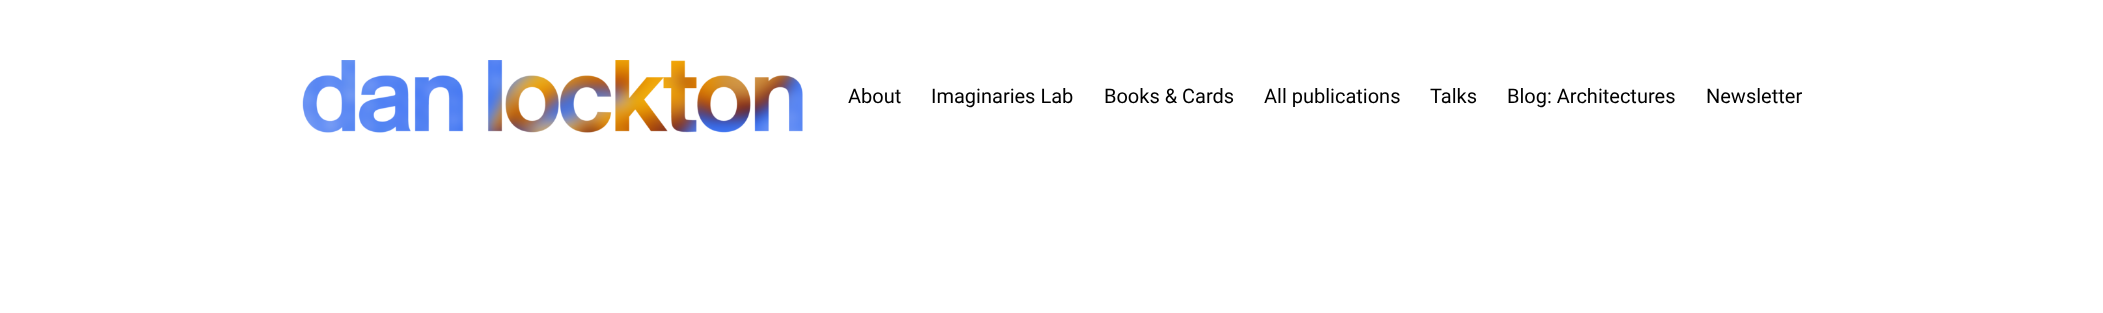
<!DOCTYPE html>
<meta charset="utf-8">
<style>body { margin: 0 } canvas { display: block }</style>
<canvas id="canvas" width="2103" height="313"></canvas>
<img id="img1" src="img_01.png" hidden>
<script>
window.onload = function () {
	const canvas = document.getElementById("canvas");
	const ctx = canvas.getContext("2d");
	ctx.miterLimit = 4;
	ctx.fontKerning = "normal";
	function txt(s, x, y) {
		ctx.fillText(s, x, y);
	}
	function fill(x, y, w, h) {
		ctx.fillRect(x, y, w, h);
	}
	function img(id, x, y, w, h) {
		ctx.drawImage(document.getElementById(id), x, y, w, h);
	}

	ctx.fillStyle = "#FFFFFF";
	fill(0, 0, 2103, 313);
	img("img1", 302, 60, 501, 73);
	ctx.font = "20px Roboto";
	ctx.fillStyle = "#000000";
	txt("About", 848, 103);
	txt("Imaginaries Lab", 931, 103);
	txt("Books & Cards", 1104, 103);
	txt("All publications", 1264, 103);
	txt("Talks", 1430, 103);
	txt("Blog: Architectures", 1507, 103);
	txt("Newsletter", 1706, 103);
};
</script>
